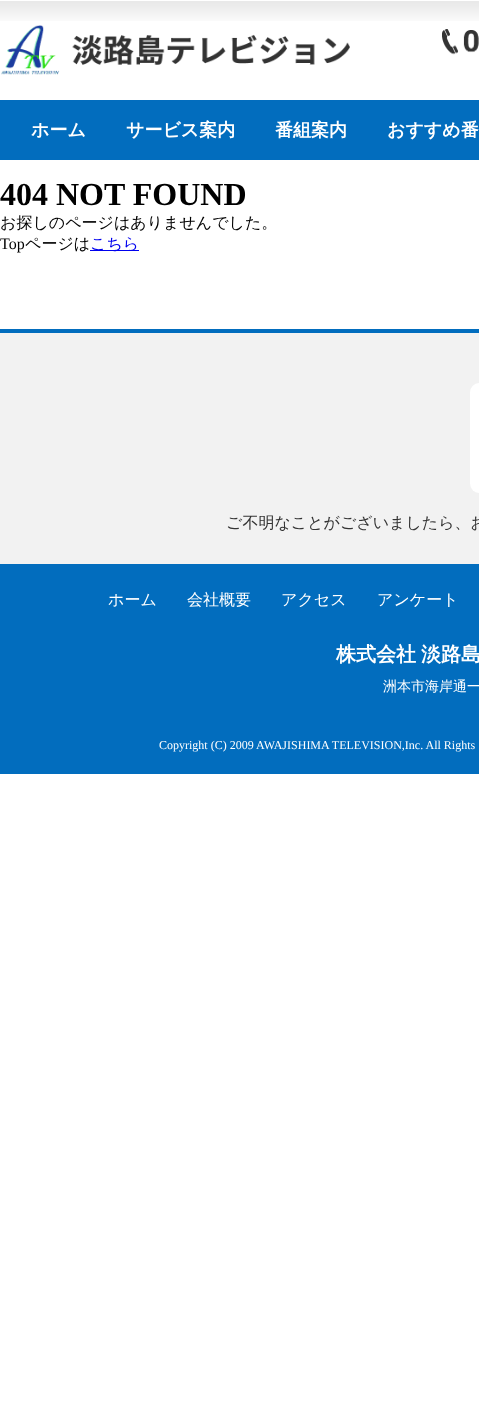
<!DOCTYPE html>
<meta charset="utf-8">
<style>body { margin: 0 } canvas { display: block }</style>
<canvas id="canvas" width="479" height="1422"></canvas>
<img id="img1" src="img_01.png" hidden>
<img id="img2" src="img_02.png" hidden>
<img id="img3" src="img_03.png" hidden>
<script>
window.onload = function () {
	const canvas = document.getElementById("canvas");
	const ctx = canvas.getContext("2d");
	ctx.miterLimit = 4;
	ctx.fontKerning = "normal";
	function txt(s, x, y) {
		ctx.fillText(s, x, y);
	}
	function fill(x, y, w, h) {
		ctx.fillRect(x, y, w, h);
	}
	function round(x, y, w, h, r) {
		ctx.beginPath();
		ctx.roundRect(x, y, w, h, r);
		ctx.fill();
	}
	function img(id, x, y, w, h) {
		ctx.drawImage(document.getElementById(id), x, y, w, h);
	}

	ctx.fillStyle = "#FFFFFF";
	fill(0, 0, 479, 1422);
	img("img1", 0, 1, 479, 20);
	img("img2", 1, 25, 349, 50);
	img("img3", 442, 29, 37, 26);
	ctx.fillStyle = "#026DBE";
	fill(0, 100, 479, 60);
	ctx.fillStyle = "#0000EE";
	fill(90, 250, 49, 1);
	ctx.fillStyle = "#F2F2F2";
	fill(0, 333, 479, 231);
	ctx.fillStyle = "#026DBE";
	fill(0, 329, 479, 4);
	ctx.fillStyle = "#FFFFFF";
	round(470, 383, 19, 110, 10);
	ctx.fillStyle = "#026DBE";
	fill(0, 564, 479, 210);
	ctx.font = "bold 18px WenQuanYi Zen Hei";
	ctx.fillStyle = "#FFFFFF";
	txt("ホーム", 31, 136);
	txt("サービス案内", 126, 136);
	txt("番組案内", 275, 136);
	txt("おすすめ番", 387, 136);
	ctx.font = "bold 32px Liberation Serif";
	ctx.fillStyle = "#000000";
	txt("404 NOT FOUND", 0, 205);
	ctx.font = "500 16px WenQuanYi Zen Hei";
	txt("お探しのページはありませんでした。", 0, 228);
	ctx.font = "16px Liberation Serif";
	txt("Top", 0, 249);
	ctx.font = "500 16px WenQuanYi Zen Hei";
	txt("ページは", 25, 249);
	ctx.fillStyle = "#0000EE";
	txt("こちら", 90, 249);
	ctx.fillStyle = "#333333";
	txt("ご不明なことがございましたら、お", 226, 528);
	ctx.fillStyle = "#FFFFFF";
	txt("ホーム", 108, 605);
	txt("会社概要", 187, 605);
	txt("アクセス", 281, 605);
	txt("アンケート", 377, 605);
	ctx.wordSpacing = "-1px";
	ctx.font = "bold 20px WenQuanYi Zen Hei";
	txt("株式会社 淡路島", 336, 661);
	ctx.wordSpacing = "0px";
	ctx.font = "500 14px WenQuanYi Zen Hei";
	txt("洲本市海岸通一", 383, 691);
	ctx.font = "12px Liberation Serif";
	txt("Copyright (C) 2009 AWAJISHIMA TELEVISION,Inc. All Rights", 159, 749);
};
</script>
